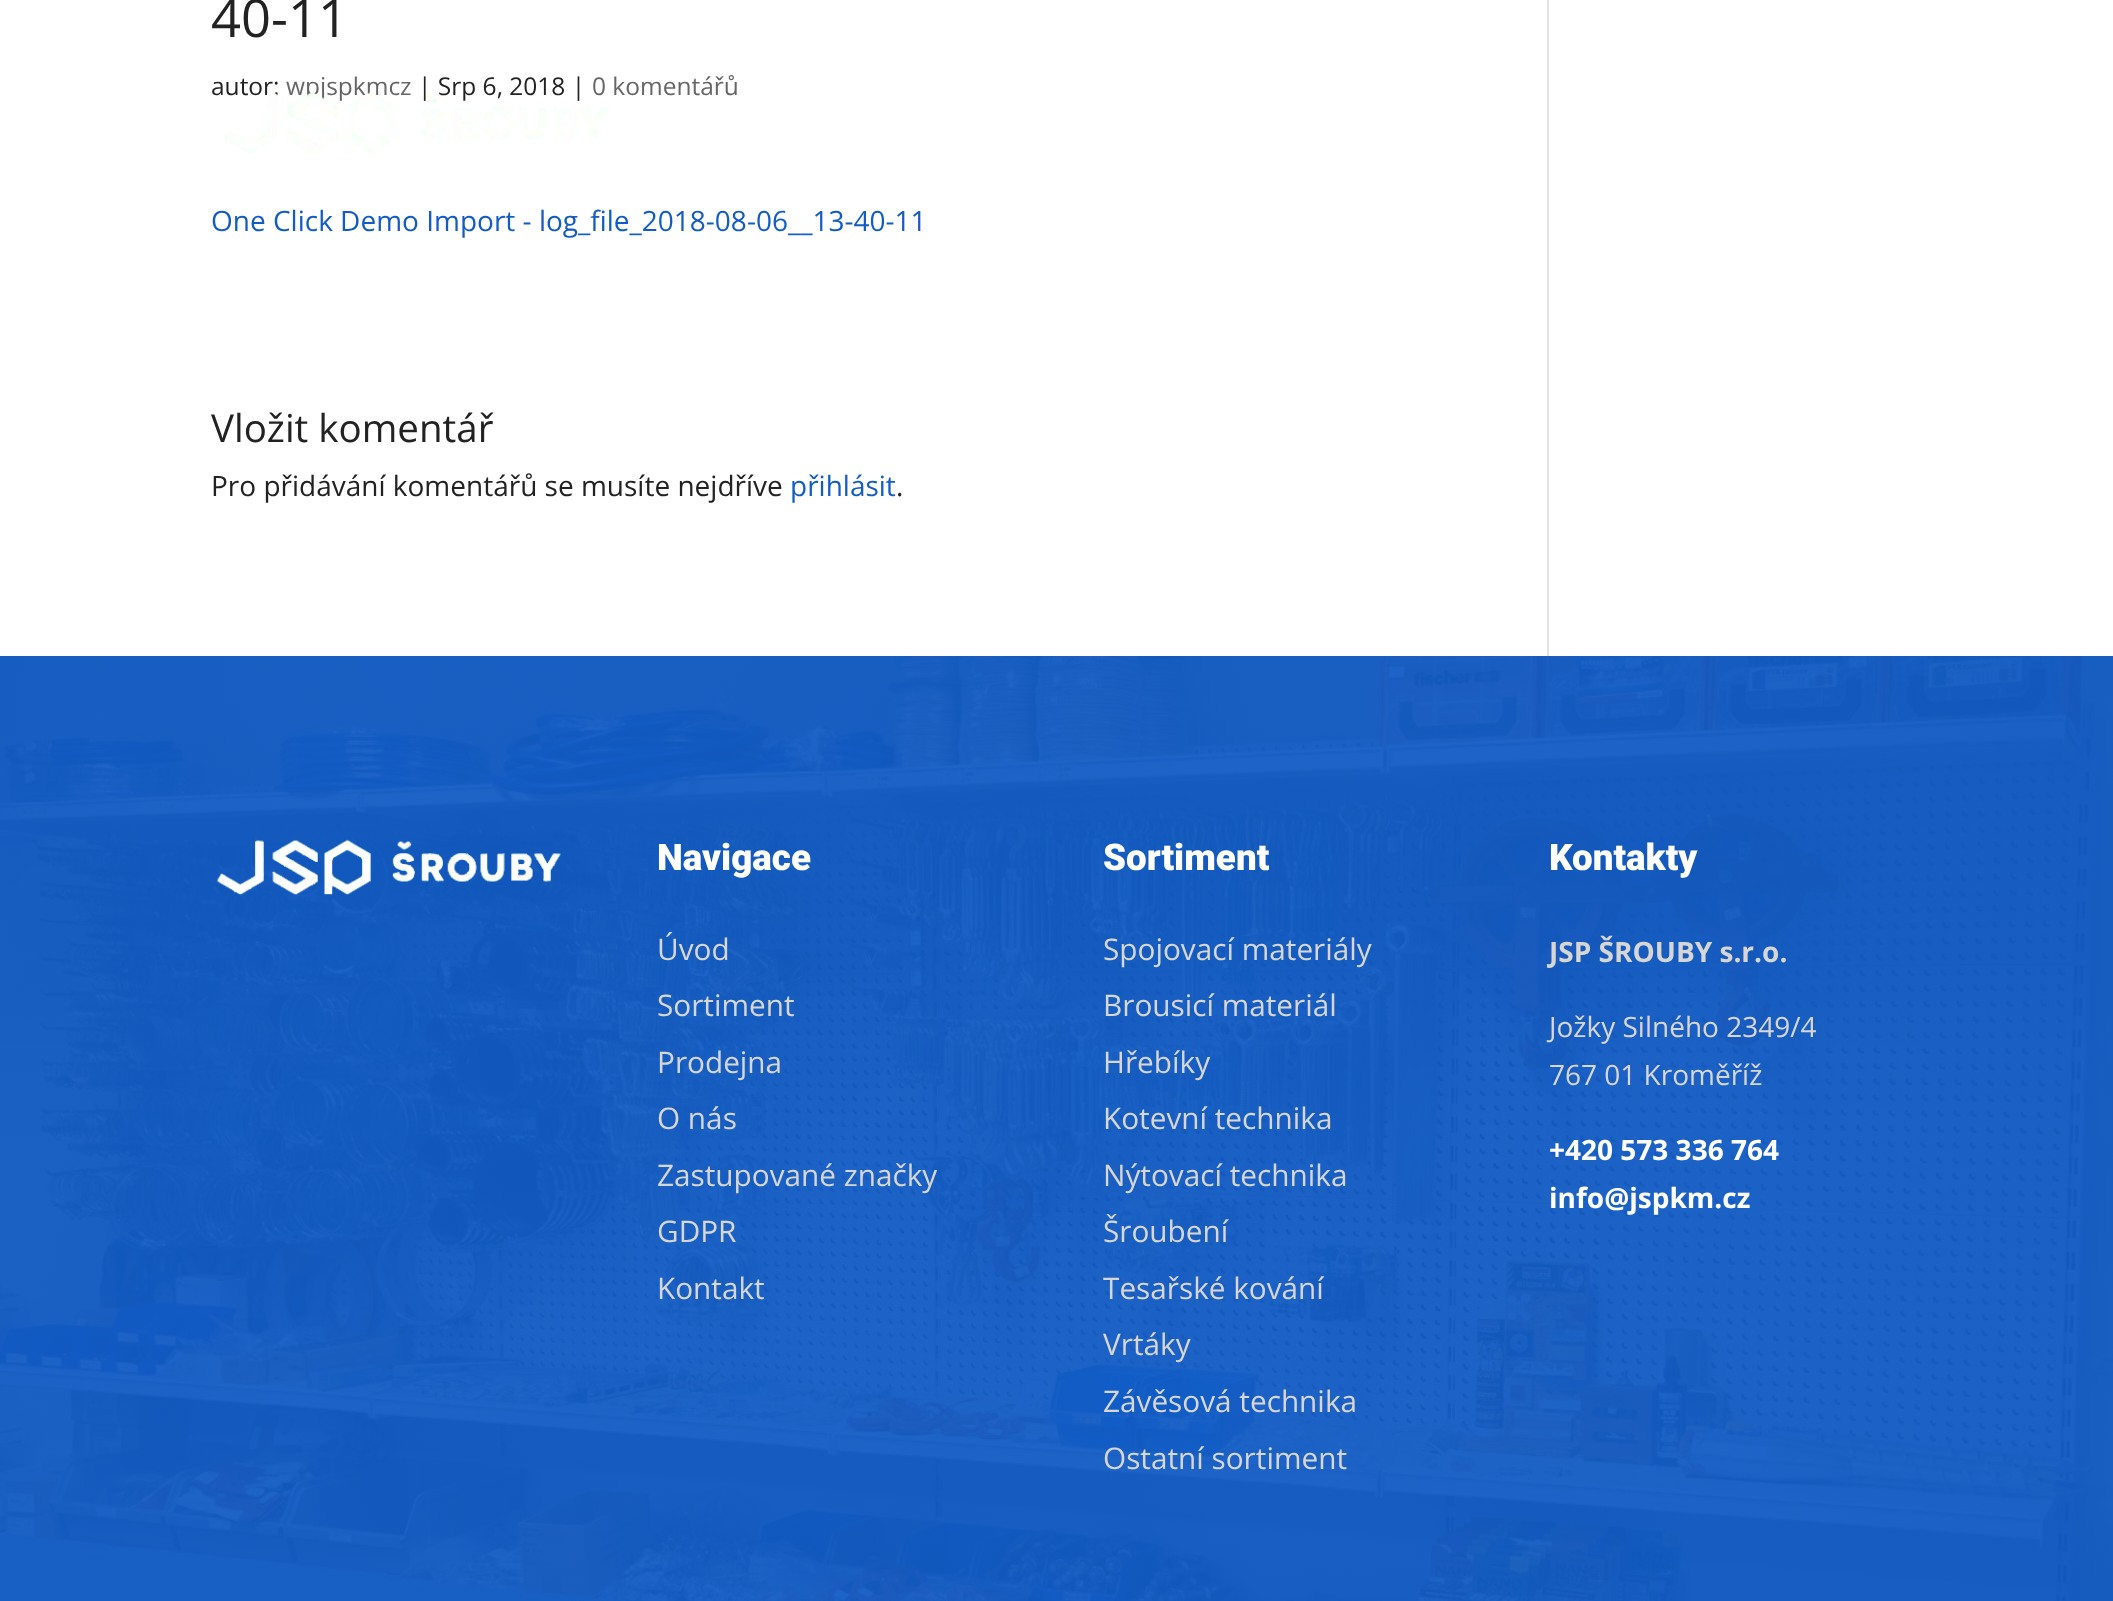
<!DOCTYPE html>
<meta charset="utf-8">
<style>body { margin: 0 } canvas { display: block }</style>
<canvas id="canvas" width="2113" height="1601"></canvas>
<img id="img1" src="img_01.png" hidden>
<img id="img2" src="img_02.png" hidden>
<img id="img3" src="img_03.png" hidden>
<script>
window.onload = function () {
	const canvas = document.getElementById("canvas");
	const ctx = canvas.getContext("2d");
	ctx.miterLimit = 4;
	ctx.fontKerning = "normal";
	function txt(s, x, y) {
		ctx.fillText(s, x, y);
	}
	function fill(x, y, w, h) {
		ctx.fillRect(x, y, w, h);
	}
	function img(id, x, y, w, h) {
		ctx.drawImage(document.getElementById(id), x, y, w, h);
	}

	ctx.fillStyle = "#FFFFFF";
	fill(0, 0, 2113, 1601);
	ctx.fillStyle = "#E2E2E2";
	fill(1547, 0, 2, 656);
	img("img1", 0, 656, 2113, 945);
	img("img2", 217, 839, 344, 56);
	ctx.font = "52.5px Open Sans";
	ctx.fillStyle = "#222222";
	txt("40-11", 211, 37);
	ctx.font = "24.5px Open Sans";
	txt("autor:", 211, 95);
	ctx.fillStyle = "#666666";
	txt("wpjspkmcz", 286, 95);
	ctx.fillStyle = "#222222";
	txt("| Srp 6, 2018 |", 418, 95);
	ctx.fillStyle = "#666666";
	txt("0 komentářů", 592, 95);
	ctx.font = "28px Open Sans";
	ctx.fillStyle = "#125CC5";
	txt("One Click Demo Import - log_file_2018-08-06__13-40-11", 211, 231);
	ctx.font = "38.5px Open Sans";
	ctx.fillStyle = "#222222";
	txt("Vložit komentář", 211, 442);
	ctx.font = "28px Open Sans";
	txt("Pro přidávání komentářů se musíte nejdříve", 211, 496);
	ctx.fillStyle = "#125CC5";
	txt("přihlásit", 790, 496);
	ctx.fillStyle = "#222222";
	txt(".", 896, 496);
	ctx.font = "900 36.75px Roboto";
	ctx.fillStyle = "#FFFFFF";
	txt("Navigace", 657, 870);
	ctx.font = "29.75px Open Sans";
	ctx.fillStyle = "#D6D6D6";
	txt("Úvod", 657, 960);
	txt("Sortiment", 657, 1016);
	txt("Prodejna", 657, 1073);
	txt("O nás", 657, 1129);
	txt("Zastupované značky", 657, 1186);
	txt("GDPR", 657, 1242);
	txt("Kontakt", 657, 1299);
	ctx.font = "900 36.75px Roboto";
	ctx.fillStyle = "#FFFFFF";
	txt("Sortiment", 1103, 870);
	ctx.font = "29.75px Open Sans";
	ctx.fillStyle = "#D6D6D6";
	txt("Spojovací materiály", 1103, 960);
	txt("Brousicí materiál", 1103, 1016);
	txt("Hřebíky", 1103, 1073);
	txt("Kotevní technika", 1103, 1129);
	txt("Nýtovací technika", 1103, 1186);
	txt("Šroubení", 1103, 1242);
	txt("Tesařské kování", 1103, 1299);
	txt("Vrtáky", 1103, 1355);
	txt("Závěsová technika", 1103, 1412);
	txt("Ostatní sortiment", 1103, 1469);
	ctx.font = "900 36.75px Roboto";
	ctx.fillStyle = "#FFFFFF";
	txt("Kontakty", 1549, 870);
	ctx.font = "bold 28px Open Sans";
	ctx.fillStyle = "#D6D6D6";
	txt("JSP ŠROUBY s.r.o.", 1549, 962);
	ctx.font = "28px Open Sans";
	txt("Jožky Silného 2349/4", 1549, 1037);
	txt("767 01 Kroměříž", 1549, 1085);
	ctx.font = "bold 28px Open Sans";
	ctx.fillStyle = "#FFFFFF";
	txt("+420 573 336 764", 1549, 1160);
	txt("info@jspkm.cz", 1549, 1208);
	img("img3", 225, 92, 384, 62);
};
</script>
